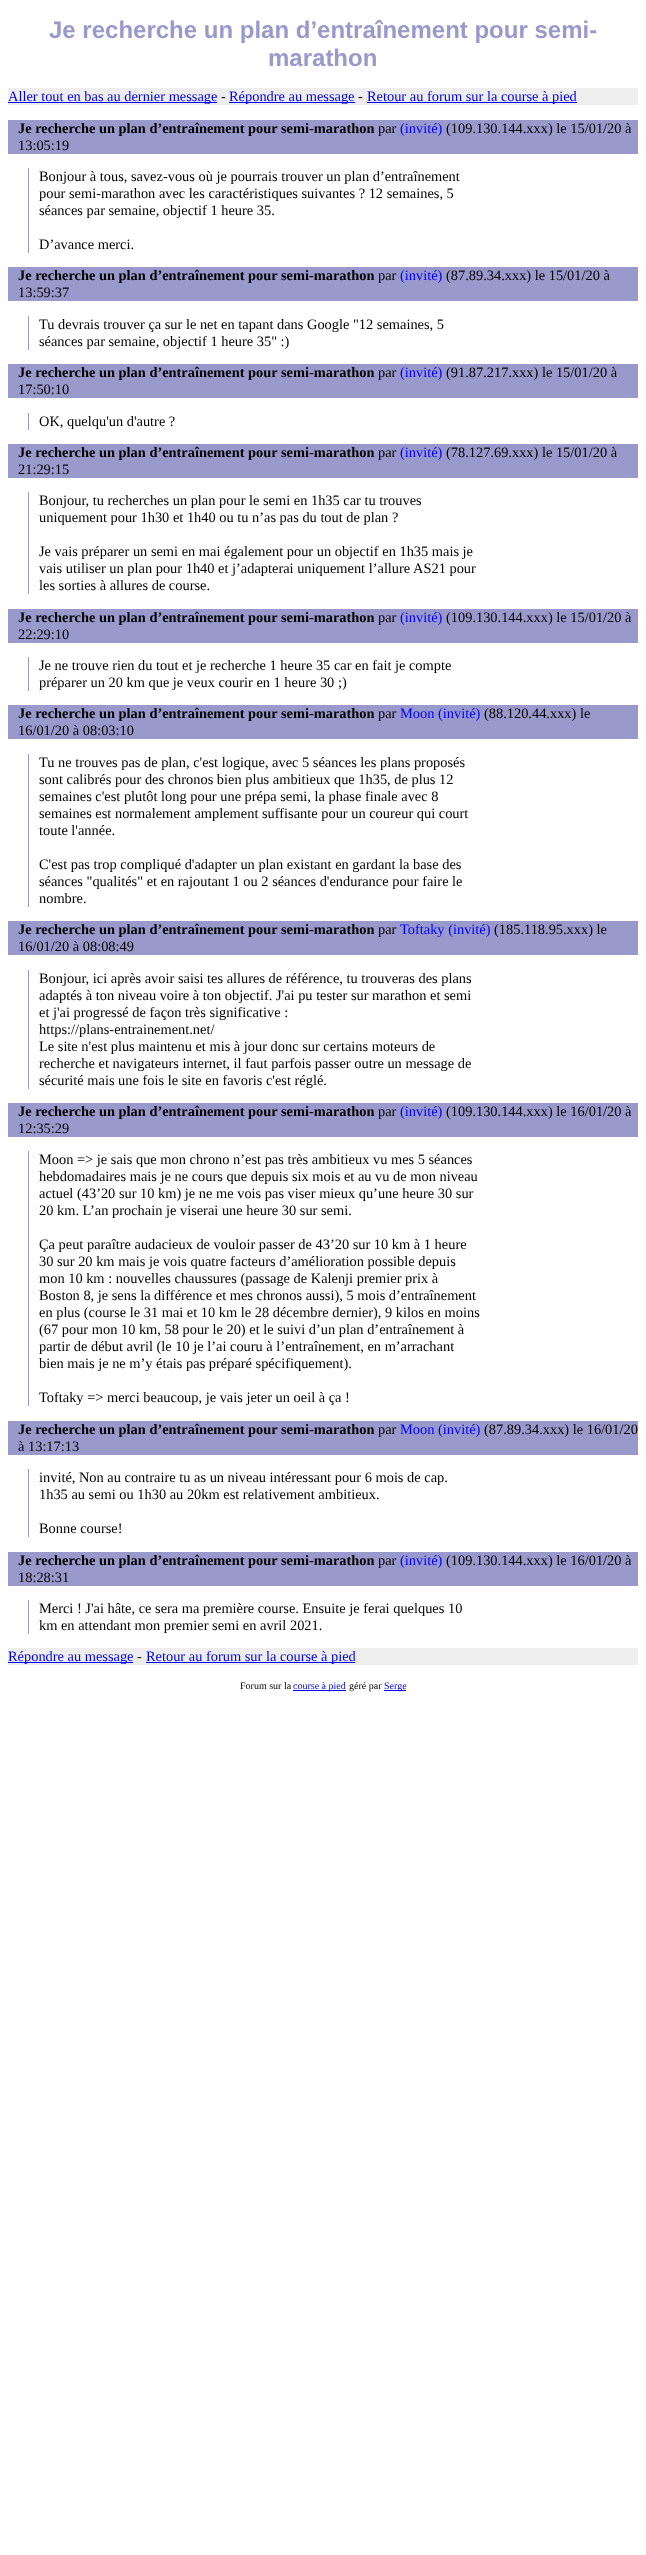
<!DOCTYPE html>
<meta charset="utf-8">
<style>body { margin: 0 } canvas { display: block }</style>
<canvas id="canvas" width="646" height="2555"></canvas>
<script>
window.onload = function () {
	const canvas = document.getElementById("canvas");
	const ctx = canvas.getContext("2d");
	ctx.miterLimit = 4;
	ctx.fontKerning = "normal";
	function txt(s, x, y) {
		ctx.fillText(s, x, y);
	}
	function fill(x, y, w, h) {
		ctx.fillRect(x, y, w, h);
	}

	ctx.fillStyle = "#FFFFFF";
	fill(0, 0, 646, 2555);
	ctx.fillStyle = "#EEEEEE";
	fill(8, 88, 630, 17);
	ctx.fillStyle = "#0000EE";
	fill(8, 102, 209, 1);
	fill(229, 102, 126, 1);
	fill(367, 102, 210, 1);
	ctx.fillStyle = "#9999CC";
	fill(8, 120, 630, 34);
	fill(28, 168, 1, 85);
	fill(8, 267, 630, 34);
	fill(28, 316, 1, 34);
	fill(8, 364, 630, 34);
	fill(28, 413, 1, 17);
	fill(8, 444, 630, 34);
	fill(28, 492, 1, 102);
	fill(8, 609, 630, 34);
	fill(28, 657, 1, 34);
	fill(8, 705, 630, 34);
	fill(28, 754, 1, 153);
	fill(8, 921, 630, 34);
	fill(28, 970, 1, 119);
	fill(8, 1103, 630, 34);
	fill(28, 1151, 1, 255);
	fill(8, 1421, 630, 34);
	fill(28, 1469, 1, 68);
	fill(8, 1552, 630, 34);
	fill(28, 1600, 1, 34);
	ctx.fillStyle = "#EEEEEE";
	fill(8, 1648, 630, 17);
	ctx.fillStyle = "#0000EE";
	fill(8, 1662, 125, 1);
	fill(146, 1662, 209, 1);
	fill(293, 1690, 53, 1);
	fill(384, 1690, 22, 1);
	ctx.font = "bold 24px Liberation Sans";
	ctx.fillStyle = "#9999CC";
	txt("Je recherche un plan d’entraînement pour semi-", 49, 38);
	txt("marathon", 268, 66);
	ctx.font = "14.4px Liberation Serif";
	ctx.fillStyle = "#0000EE";
	txt("Aller tout en bas au dernier message", 8, 101);
	ctx.fillStyle = "#000000";
	txt("-", 221, 101);
	ctx.fillStyle = "#0000EE";
	txt("Répondre au message", 229, 101);
	ctx.fillStyle = "#000000";
	txt("-", 358, 101);
	ctx.fillStyle = "#0000EE";
	txt("Retour au forum sur la course à pied", 367, 101);
	ctx.font = "bold 14.4px Liberation Serif";
	ctx.fillStyle = "#000000";
	txt("Je recherche un plan d’entraînement pour semi-marathon", 18, 133);
	ctx.font = "14.4px Liberation Serif";
	txt("par", 378, 133);
	ctx.fillStyle = "#0000FF";
	txt("(invité)", 400, 133);
	ctx.fillStyle = "#000000";
	txt("(109.130.144.xxx) le 15/01/20 à", 446, 133);
	txt("13:05:19", 18, 150);
	txt("Bonjour à tous, savez-vous où je pourrais trouver un plan d’entraînement", 39, 181);
	txt("pour semi-marathon avec les caractéristiques suivantes ? 12 semaines, 5", 39, 198);
	txt("séances par semaine, objectif 1 heure 35.", 39, 215);
	txt("D’avance merci.", 39, 249);
	ctx.font = "bold 14.4px Liberation Serif";
	txt("Je recherche un plan d’entraînement pour semi-marathon", 18, 280);
	ctx.font = "14.4px Liberation Serif";
	txt("par", 378, 280);
	ctx.fillStyle = "#0000FF";
	txt("(invité)", 400, 280);
	ctx.fillStyle = "#000000";
	txt("(87.89.34.xxx) le 15/01/20 à", 446, 280);
	txt("13:59:37", 18, 297);
	txt("Tu devrais trouver ça sur le net en tapant dans Google \"12 semaines, 5", 39, 329);
	txt("séances par semaine, objectif 1 heure 35\" :)", 39, 346);
	ctx.font = "bold 14.4px Liberation Serif";
	txt("Je recherche un plan d’entraînement pour semi-marathon", 18, 377);
	ctx.font = "14.4px Liberation Serif";
	txt("par", 378, 377);
	ctx.fillStyle = "#0000FF";
	txt("(invité)", 400, 377);
	ctx.fillStyle = "#000000";
	txt("(91.87.217.xxx) le 15/01/20 à", 446, 377);
	txt("17:50:10", 18, 394);
	txt("OK, quelqu'un d'autre ?", 39, 426);
	ctx.font = "bold 14.4px Liberation Serif";
	txt("Je recherche un plan d’entraînement pour semi-marathon", 18, 457);
	ctx.font = "14.4px Liberation Serif";
	txt("par", 378, 457);
	ctx.fillStyle = "#0000FF";
	txt("(invité)", 400, 457);
	ctx.fillStyle = "#000000";
	txt("(78.127.69.xxx) le 15/01/20 à", 446, 457);
	txt("21:29:15", 18, 474);
	txt("Bonjour, tu recherches un plan pour le semi en 1h35 car tu trouves", 39, 505);
	txt("uniquement pour 1h30 et 1h40 ou tu n’as pas du tout de plan ?", 39, 522);
	txt("Je vais préparer un semi en mai également pour un objectif en 1h35 mais je", 39, 556);
	txt("vais utiliser un plan pour 1h40 et j’adapterai uniquement l’allure AS21 pour", 39, 573);
	txt("les sorties à allures de course.", 39, 590);
	ctx.font = "bold 14.4px Liberation Serif";
	txt("Je recherche un plan d’entraînement pour semi-marathon", 18, 622);
	ctx.font = "14.4px Liberation Serif";
	txt("par", 378, 622);
	ctx.fillStyle = "#0000FF";
	txt("(invité)", 400, 622);
	ctx.fillStyle = "#000000";
	txt("(109.130.144.xxx) le 15/01/20 à", 446, 622);
	txt("22:29:10", 18, 639);
	txt("Je ne trouve rien du tout et je recherche 1 heure 35 car en fait je compte", 39, 670);
	txt("préparer un 20 km que je veux courir en 1 heure 30 ;)", 39, 687);
	ctx.font = "bold 14.4px Liberation Serif";
	txt("Je recherche un plan d’entraînement pour semi-marathon", 18, 718);
	ctx.font = "14.4px Liberation Serif";
	txt("par", 378, 718);
	ctx.fillStyle = "#0000FF";
	txt("Moon (invité)", 400, 718);
	ctx.fillStyle = "#000000";
	txt("(88.120.44.xxx) le", 484, 718);
	txt("16/01/20 à 08:03:10", 18, 735);
	txt("Tu ne trouves pas de plan, c'est logique, avec 5 séances les plans proposés", 39, 767);
	txt("sont calibrés pour des chronos bien plus ambitieux que 1h35, de plus 12", 39, 784);
	txt("semaines c'est plutôt long pour une prépa semi, la phase finale avec 8", 39, 801);
	txt("semaines est normalement amplement suffisante pour un coureur qui court", 39, 818);
	txt("toute l'année.", 39, 835);
	txt("C'est pas trop compliqué d'adapter un plan existant en gardant la base des", 39, 869);
	txt("séances \"qualités\" et en rajoutant 1 ou 2 séances d'endurance pour faire le", 39, 886);
	txt("nombre.", 39, 903);
	ctx.font = "bold 14.4px Liberation Serif";
	txt("Je recherche un plan d’entraînement pour semi-marathon", 18, 934);
	ctx.font = "14.4px Liberation Serif";
	txt("par", 378, 934);
	ctx.fillStyle = "#0000FF";
	txt("Toftaky (invité)", 400, 934);
	ctx.fillStyle = "#000000";
	txt("(185.118.95.xxx) le", 494, 934);
	txt("16/01/20 à 08:08:49", 18, 951);
	txt("Bonjour, ici après avoir saisi tes allures de référence, tu trouveras des plans", 39, 983);
	txt("adaptés à ton niveau voire à ton objectif. J'ai pu tester sur marathon et semi", 39, 1000);
	txt("et j'ai progressé de façon très significative :", 39, 1017);
	txt("https://plans-entrainement.net/", 39, 1034);
	txt("Le site n'est plus maintenu et mis à jour donc sur certains moteurs de", 39, 1051);
	txt("recherche et navigateurs internet, il faut parfois passer outre un message de", 39, 1068);
	txt("sécurité mais une fois le site en favoris c'est réglé.", 39, 1085);
	ctx.font = "bold 14.4px Liberation Serif";
	txt("Je recherche un plan d’entraînement pour semi-marathon", 18, 1116);
	ctx.font = "14.4px Liberation Serif";
	txt("par", 378, 1116);
	ctx.fillStyle = "#0000FF";
	txt("(invité)", 400, 1116);
	ctx.fillStyle = "#000000";
	txt("(109.130.144.xxx) le 16/01/20 à", 446, 1116);
	txt("12:35:29", 18, 1133);
	txt("Moon => je sais que mon chrono n’est pas très ambitieux vu mes 5 séances", 39, 1164);
	txt("hebdomadaires mais je ne cours que depuis six mois et au vu de mon niveau", 39, 1181);
	txt("actuel (43’20 sur 10 km) je ne me vois pas viser mieux qu’une heure 30 sur", 39, 1198);
	txt("20 km. L’an prochain je viserai une heure 30 sur semi.", 39, 1215);
	txt("Ça peut paraître audacieux de vouloir passer de 43’20 sur 10 km à 1 heure", 39, 1249);
	txt("30 sur 20 km mais je vois quatre facteurs d’amélioration possible depuis", 39, 1266);
	txt("mon 10 km : nouvelles chaussures (passage de Kalenji premier prix à", 39, 1283);
	txt("Boston 8, je sens la différence et mes chronos aussi), 5 mois d’entraînement", 39, 1300);
	txt("en plus (course le 31 mai et 10 km le 28 décembre dernier), 9 kilos en moins", 39, 1317);
	txt("(67 pour mon 10 km, 58 pour le 20) et le suivi d’un plan d’entraînement à", 39, 1334);
	txt("partir de début avril (le 10 je l’ai couru à l’entraînement, en m’arrachant", 39, 1351);
	txt("bien mais je ne m’y étais pas préparé spécifiquement).", 39, 1368);
	txt("Toftaky => merci beaucoup, je vais jeter un oeil à ça !", 39, 1402);
	ctx.font = "bold 14.4px Liberation Serif";
	txt("Je recherche un plan d’entraînement pour semi-marathon", 18, 1434);
	ctx.font = "14.4px Liberation Serif";
	txt("par", 378, 1434);
	ctx.fillStyle = "#0000FF";
	txt("Moon (invité)", 400, 1434);
	ctx.fillStyle = "#000000";
	txt("(87.89.34.xxx) le 16/01/20", 484, 1434);
	txt("à 13:17:13", 18, 1451);
	txt("invité, Non au contraire tu as un niveau intéressant pour 6 mois de cap.", 39, 1482);
	txt("1h35 au semi ou 1h30 au 20km est relativement ambitieux.", 39, 1499);
	txt("Bonne course!", 39, 1533);
	ctx.font = "bold 14.4px Liberation Serif";
	txt("Je recherche un plan d’entraînement pour semi-marathon", 18, 1565);
	ctx.font = "14.4px Liberation Serif";
	txt("par", 378, 1565);
	ctx.fillStyle = "#0000FF";
	txt("(invité)", 400, 1565);
	ctx.fillStyle = "#000000";
	txt("(109.130.144.xxx) le 16/01/20 à", 446, 1565);
	txt("18:28:31", 18, 1582);
	txt("Merci ! J'ai hâte, ce sera ma première course. Ensuite je ferai quelques 10", 39, 1613);
	txt("km en attendant mon premier semi en avril 2021.", 39, 1630);
	ctx.fillStyle = "#0000EE";
	txt("Répondre au message", 8, 1661);
	ctx.fillStyle = "#000000";
	txt("-", 137, 1661);
	ctx.fillStyle = "#0000EE";
	txt("Retour au forum sur la course à pied", 146, 1661);
	ctx.font = "10px Liberation Serif";
	ctx.fillStyle = "#000000";
	txt("Forum sur la", 240, 1689);
	ctx.fillStyle = "#0000EE";
	txt("course à pied", 293, 1689);
	ctx.fillStyle = "#000000";
	txt("géré par", 349, 1689);
	ctx.fillStyle = "#0000EE";
	txt("Serge", 384, 1689);
};
</script>
